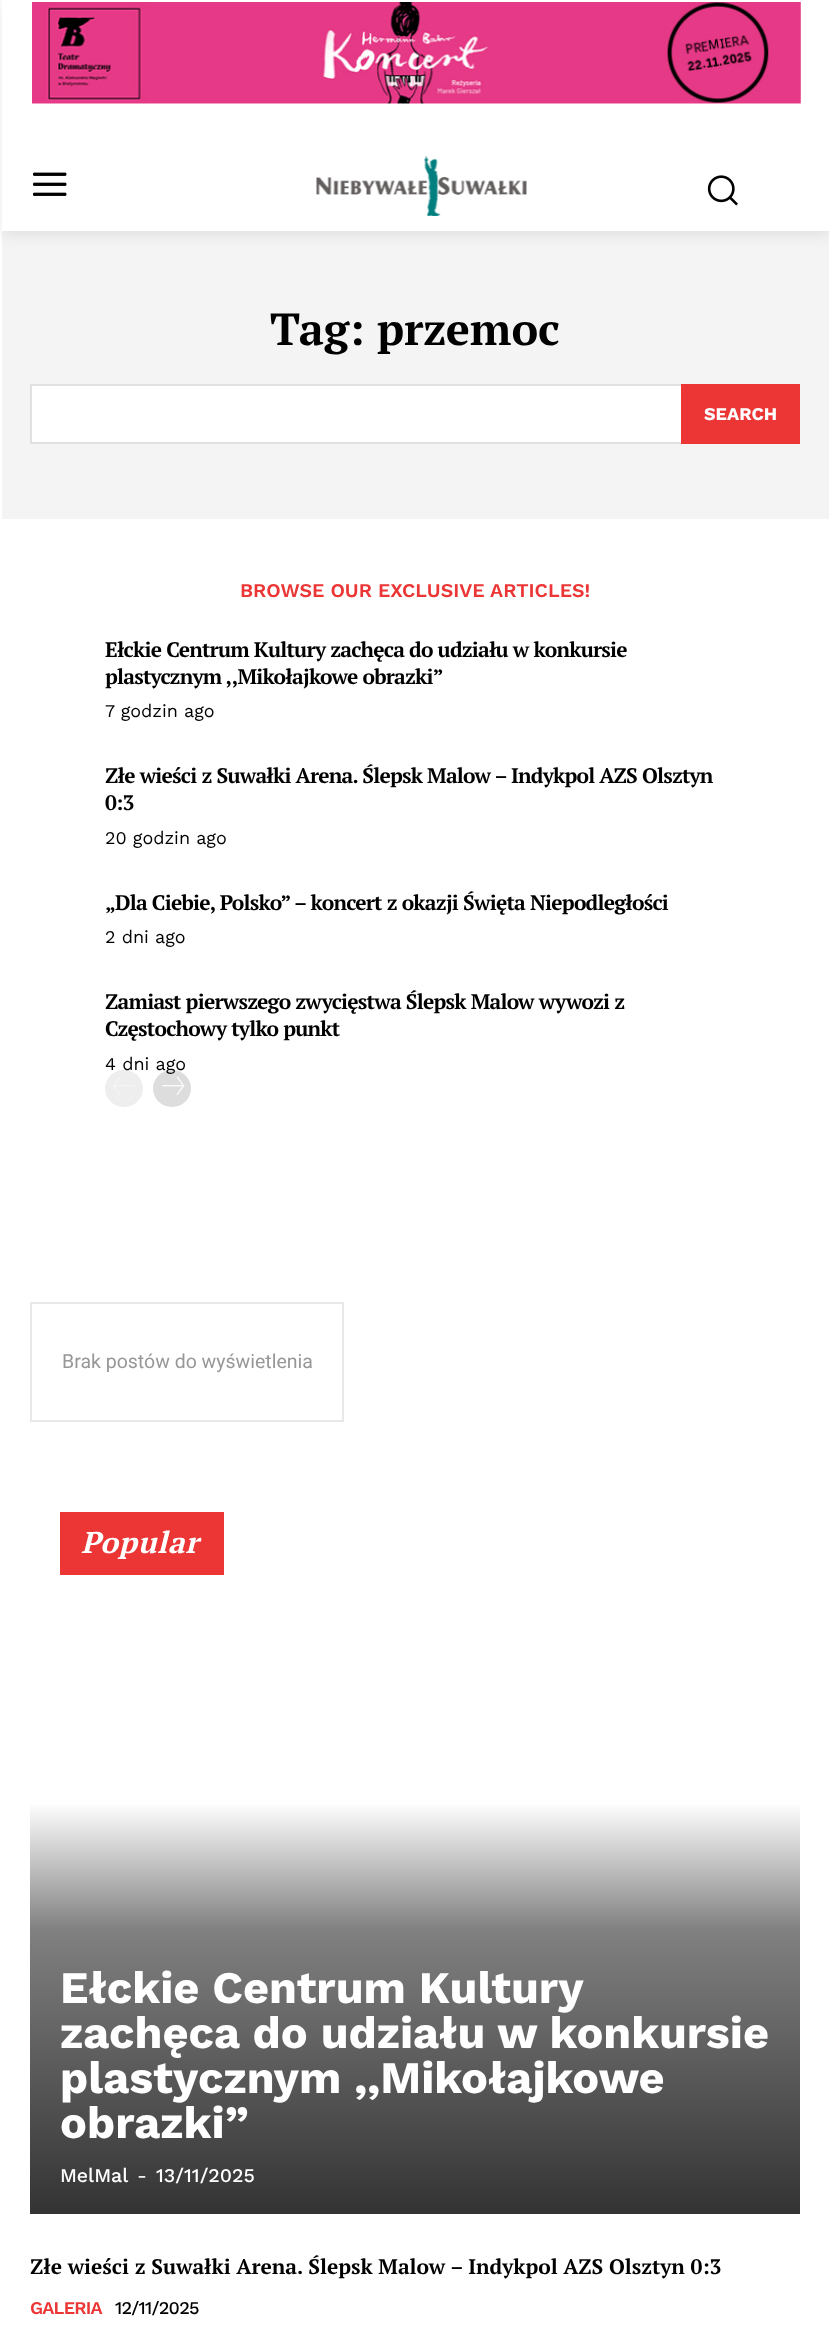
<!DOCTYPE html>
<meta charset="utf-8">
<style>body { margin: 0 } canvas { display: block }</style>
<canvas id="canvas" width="829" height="2336"></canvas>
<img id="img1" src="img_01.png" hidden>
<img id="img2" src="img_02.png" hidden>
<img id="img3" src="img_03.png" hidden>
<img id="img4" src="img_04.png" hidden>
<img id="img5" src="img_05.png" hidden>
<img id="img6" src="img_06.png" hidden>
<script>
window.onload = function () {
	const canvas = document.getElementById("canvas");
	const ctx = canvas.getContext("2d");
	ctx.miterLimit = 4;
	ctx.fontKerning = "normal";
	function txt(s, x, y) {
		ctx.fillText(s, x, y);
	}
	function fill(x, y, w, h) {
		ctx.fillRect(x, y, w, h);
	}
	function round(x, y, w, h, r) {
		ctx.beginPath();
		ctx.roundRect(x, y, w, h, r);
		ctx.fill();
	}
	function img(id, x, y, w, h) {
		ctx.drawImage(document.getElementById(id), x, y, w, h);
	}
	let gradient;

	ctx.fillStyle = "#FFFFFF";
	fill(0, 0, 829, 2336);
	img("img1", 32, 2, 769, 102);
	img("img2", 33, 172, 34, 24);
	img("img3", 316, 156, 211, 60);
	img("img4", 707, 175, 31, 31);
	ctx.fillStyle = "#F4F4F4";
	fill(2, 231, 827, 288);
	ctx.save();
	ctx.beginPath();
	ctx.moveTo(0, 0);
	ctx.lineTo(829, 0);
	ctx.lineTo(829, 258);
	ctx.lineTo(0, 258);
	ctx.closePath();
	ctx.moveTo(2, 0);
	ctx.lineTo(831, 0);
	ctx.lineTo(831, 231);
	ctx.lineTo(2, 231);
	ctx.closePath();
	ctx.clip("evenodd");
	ctx.fillStyle = "rgba(0, 0, 0, 0.09)";
	ctx.filter = "blur(7.5px)";
	ctx.beginPath();
	ctx.rect(2, 3, 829, 231);
	ctx.fill();
	ctx.filter = "none";
	ctx.restore();
	ctx.fillStyle = "#FFFFFF";
	fill(32, 386, 649, 56);
	ctx.strokeStyle = "#E1E1E1";
	ctx.lineWidth = 2;
	ctx.strokeRect(31, 385, 768, 58);
	ctx.fillStyle = "#EC3535";
	fill(681, 384, 119, 60);
	ctx.fillStyle = "#EEEEEE";
	round(105, 1070, 38, 37, 18.5);
	img("img5", 113, 1077, 22, 18);
	ctx.fillStyle = "#DDDDDD";
	round(153, 1070, 38, 37, 18.5);
	img("img6", 162, 1076, 23, 19);
	ctx.strokeStyle = "#E8E8E8";
	ctx.strokeRect(31, 1303, 312, 118);
	ctx.fillStyle = "#EC3535";
	fill(60, 1512, 164, 63);
	gradient = ctx.createLinearGradient(415, 2214, 415, 1539);
	gradient.addColorStop(0, "#333333");
	gradient.addColorStop(0.42, "#808080");
	gradient.addColorStop(0.61, "#FFFFFF");
	gradient.addColorStop(1, "#FFFFFF");
	ctx.fillStyle = gradient;
	fill(30, 1805, 770, 409);
	ctx.font = "bold 45px PT Serif";
	ctx.fillStyle = "#000000";
	txt("Tag: przemoc", 270, 345);
	ctx.font = "bold 18px Work Sans";
	ctx.fillStyle = "#FFFFFF";
	txt("SEARCH", 704, 420);
	ctx.font = "600 19.5px Work Sans";
	ctx.fillStyle = "#EC3535";
	txt("BROWSE OUR EXCLUSIVE ARTICLES!", 240, 597);
	ctx.letterSpacing = "-0.75px";
	ctx.font = "bold 21px PT Serif";
	ctx.fillStyle = "#000000";
	txt("Ełckie Centrum Kultury zachęca do udziału w konkursie", 105, 657);
	txt("plastycznym ,,Mikołajkowe obrazki”", 105, 684);
	ctx.letterSpacing = "0px";
	ctx.font = "18px Work Sans";
	txt("7 godzin ago", 105, 717);
	ctx.letterSpacing = "-0.75px";
	ctx.font = "bold 21px PT Serif";
	txt("Złe wieści z Suwałki Arena. Ślepsk Malow – Indykpol AZS Olsztyn", 105, 783);
	txt("0:3", 105, 810);
	ctx.letterSpacing = "0px";
	ctx.font = "18px Work Sans";
	txt("20 godzin ago", 105, 844);
	ctx.letterSpacing = "-0.75px";
	ctx.font = "bold 21px PT Serif";
	txt("„Dla Ciebie, Polsko” – koncert z okazji Święta Niepodległości", 105, 910);
	ctx.letterSpacing = "0px";
	ctx.font = "18px Work Sans";
	txt("2 dni ago", 105, 943);
	ctx.letterSpacing = "-0.75px";
	ctx.font = "bold 21px PT Serif";
	txt("Zamiast pierwszego zwycięstwa Ślepsk Malow wywozi z", 105, 1009);
	txt("Częstochowy tylko punkt", 105, 1036);
	ctx.letterSpacing = "0px";
	ctx.font = "18px Work Sans";
	txt("4 dni ago", 105, 1070);
	ctx.font = "19.5px Roboto";
	ctx.fillStyle = "#979797";
	txt("Brak postów do wyświetlenia", 62, 1368);
	ctx.letterSpacing = "0.75px";
	ctx.font = "italic bold 30px PT Serif";
	ctx.fillStyle = "#FFFFFF";
	txt("Popular", 81, 1553);
	ctx.letterSpacing = "0px";
	ctx.font = "bold 45px Work Sans";
	txt("Ełckie Centrum Kultury", 60, 2003);
	txt("zachęca do udziału w konkursie", 60, 2048);
	txt("plastycznym ,,Mikołajkowe", 60, 2093);
	txt("obrazki”", 60, 2138);
	ctx.font = "500 19.5px Work Sans";
	txt("MelMal", 60, 2182);
	ctx.font = "19.5px Work Sans";
	txt("-", 137, 2182);
	ctx.font = "500 19.5px Work Sans";
	txt("13/11/2025", 156, 2182);
	ctx.font = "bold 21px PT Serif";
	ctx.fillStyle = "#000000";
	txt("Złe wieści z Suwałki Arena. Ślepsk Malow – Indykpol AZS Olsztyn 0:3", 30, 2274);
	ctx.letterSpacing = "-0.75px";
	ctx.font = "600 18px Work Sans";
	ctx.fillStyle = "#EC3535";
	txt("GALERIA", 30, 2314);
	ctx.font = "500 18px Work Sans";
	ctx.fillStyle = "#000000";
	txt("12/11/2025", 115, 2314);
};
</script>
